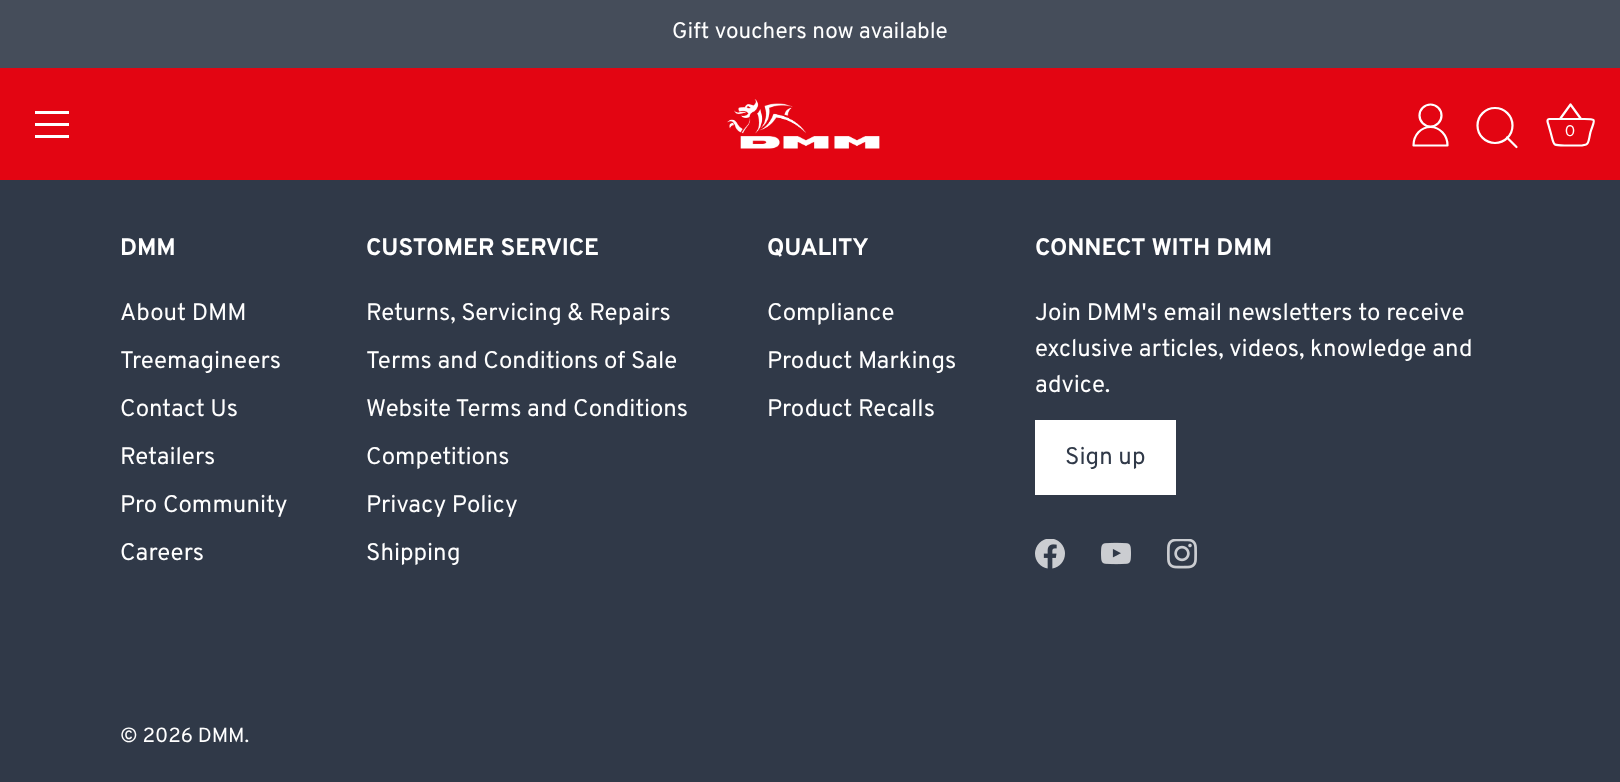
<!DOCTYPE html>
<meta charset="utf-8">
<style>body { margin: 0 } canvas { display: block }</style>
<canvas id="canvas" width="1620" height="782"></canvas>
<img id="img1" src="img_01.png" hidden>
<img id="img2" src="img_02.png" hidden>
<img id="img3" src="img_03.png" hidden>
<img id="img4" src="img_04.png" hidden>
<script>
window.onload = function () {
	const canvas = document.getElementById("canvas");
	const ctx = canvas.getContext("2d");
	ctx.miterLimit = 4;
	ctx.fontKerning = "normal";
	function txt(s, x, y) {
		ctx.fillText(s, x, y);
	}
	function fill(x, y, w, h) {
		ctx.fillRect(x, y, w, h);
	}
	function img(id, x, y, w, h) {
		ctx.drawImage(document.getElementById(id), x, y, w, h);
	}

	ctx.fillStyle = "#303948";
	fill(0, 0, 1620, 782);
	ctx.fillStyle = "#E30512";
	fill(0, 68, 1620, 112);
	ctx.fillStyle = "#454D5A";
	fill(0, 0, 1620, 68);
	ctx.fillStyle = "#FFFFFF";
	fill(35, 111, 34, 3);
	fill(35, 123, 34, 3);
	fill(35, 135, 34, 3);
	img("img1", 727, 99, 153, 50);
	ctx.beginPath();
	ctx.arc(1430.5, 115.5, 11, 0, Math.PI * 2);
	ctx.strokeStyle = "#FFFFFF";
	ctx.lineWidth = 2.2;
	ctx.stroke();
	ctx.beginPath();
	ctx.moveTo(1430.5, 127);
	ctx.bezierCurveTo(1439.5, 127, 1447.5, 135, 1447.5, 145.5);
	ctx.lineTo(1413.5, 145.5);
	ctx.bezierCurveTo(1413.5, 135, 1421, 127, 1430.5, 127);
	ctx.lineJoin = "round";
	ctx.stroke();
	ctx.beginPath();
	ctx.arc(1495, 125.5, 17.5, 0, Math.PI * 2);
	ctx.stroke();
	ctx.beginPath();
	ctx.moveTo(1516.5, 147);
	ctx.lineTo(1507, 137.5);
	ctx.lineCap = "round";
	ctx.stroke();
	ctx.beginPath();
	ctx.moveTo(1549.5, 119);
	ctx.bezierCurveTo(1546, 119, 1548, 123.5, 1548.5, 125);
	ctx.lineTo(1550.5, 132);
	ctx.bezierCurveTo(1554.5, 146, 1551.5, 145.5, 1566, 145.5);
	ctx.lineTo(1579, 145.5);
	ctx.bezierCurveTo(1590, 145.5, 1588, 142.5, 1590.5, 132);
	ctx.bezierCurveTo(1594.5, 119.5, 1597.5, 119, 1584.5, 119);
	ctx.lineTo(1549.5, 119);
	ctx.moveTo(1560, 119);
	ctx.lineTo(1570.5, 104.5);
	ctx.lineTo(1581, 119);
	ctx.lineCap = "butt";
	ctx.stroke();
	fill(1035, 420, 141, 75);
	img("img2", 1035, 539, 30, 30);
	img("img3", 1101, 542, 30, 23);
	img("img4", 1167, 539, 30, 30);
	ctx.font = "22.5px Overpass";
	txt("Gift vouchers now available", 672, 38);
	ctx.font = "15px Instrument Sans";
	txt("0", 1565, 136);
	ctx.font = "bold 24px Overpass";
	txt("DMM", 120, 255);
	ctx.font = "24px Overpass";
	txt("About DMM", 120, 320);
	txt("Treemagineers", 120, 368);
	txt("Contact Us", 120, 416);
	txt("Retailers", 120, 464);
	txt("Pro Community", 120, 512);
	txt("Careers", 120, 560);
	ctx.font = "bold 24px Overpass";
	txt("CUSTOMER SERVICE", 366, 255);
	ctx.font = "24px Overpass";
	txt("Returns, Servicing & Repairs", 366, 320);
	txt("Terms and Conditions of Sale", 366, 368);
	txt("Website Terms and Conditions", 366, 416);
	txt("Competitions", 366, 464);
	txt("Privacy Policy", 366, 512);
	txt("Shipping", 366, 560);
	ctx.font = "bold 24px Overpass";
	txt("QUALITY", 767, 255);
	ctx.font = "24px Overpass";
	txt("Compliance", 767, 320);
	txt("Product Markings", 767, 368);
	txt("Product Recalls", 767, 416);
	ctx.font = "bold 24px Overpass";
	txt("CONNECT WITH DMM", 1035, 255);
	ctx.font = "24px Overpass";
	txt("Join DMM's email newsletters to receive", 1035, 320);
	txt("exclusive articles, videos, knowledge and", 1035, 356);
	txt("advice.", 1035, 392);
	ctx.fillStyle = "#303948";
	txt("Sign up", 1065, 464);
	ctx.font = "20.5px Overpass";
	ctx.fillStyle = "#FFFFFF";
	txt("© 2026 DMM.", 120, 742);
};
</script>
